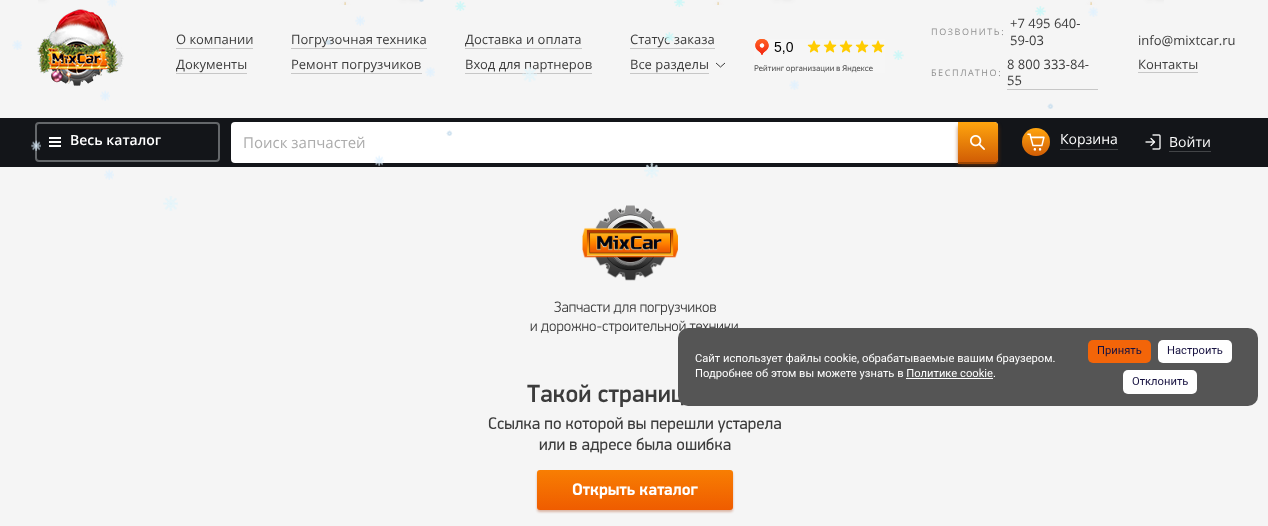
<!DOCTYPE html>
<meta charset="utf-8">
<style>body { margin: 0 } canvas { display: block }</style>
<canvas id="canvas" width="1268" height="526"></canvas>
<img id="img1" src="img_07.png" hidden>
<img id="img2" src="img_01.png" hidden>
<img id="img3" src="img_02.png" hidden>
<img id="img4" src="img_03.png" hidden>
<img id="img5" src="img_04.png" hidden>
<img id="img6" src="img_05.png" hidden>
<img id="img7" src="img_06.png" hidden>
<img id="img8" src="img_08.png" hidden>
<img id="img9" src="img_09.png" hidden>
<img id="img10" src="img_10.png" hidden>
<img id="img11" src="img_11.png" hidden>
<img id="img12" src="img_12.png" hidden>
<img id="img13" src="img_13.png" hidden>
<img id="img14" src="img_14.png" hidden>
<img id="img15" src="img_18.png" hidden>
<img id="img16" src="img_19.png" hidden>
<img id="img17" src="img_20.png" hidden>
<img id="img18" src="img_21.png" hidden>
<img id="img19" src="img_22.png" hidden>
<img id="img20" src="img_23.png" hidden>
<img id="img21" src="img_15.png" hidden>
<img id="img22" src="img_16.png" hidden>
<img id="img23" src="img_17.png" hidden>
<script>
window.onload = function () {
	const canvas = document.getElementById("canvas");
	const ctx = canvas.getContext("2d");
	ctx.miterLimit = 4;
	ctx.fontKerning = "normal";
	function txt(s, x, y) {
		ctx.fillText(s, x, y);
	}
	function fill(x, y, w, h) {
		ctx.fillRect(x, y, w, h);
	}
	function round(x, y, w, h, r) {
		ctx.beginPath();
		ctx.roundRect(x, y, w, h, r);
		ctx.fill();
	}
	function img(id, x, y, w, h) {
		ctx.drawImage(document.getElementById(id), x, y, w, h);
	}
	let gradient;

	ctx.fillStyle = "#F5F5F5";
	fill(0, 0, 1268, 526);
	img("img1", 38, 0, 1126, 5);
	img("img2", 107, 0, 10, 7);
	img("img3", 419, 0, 5, 2);
	img("img4", 455, 1, 11, 10);
	img("img5", 674, 0, 11, 7);
	img("img4", 1035, 6, 11, 10);
	img("img6", 1088, 7, 10, 10);
	img("img7", 355, 15, 10, 11);
	img("img8", 37, 9, 87, 77);
	ctx.fillStyle = "#C7C7C7";
	fill(176, 48, 77, 1);
	fill(176, 73, 71, 1);
	fill(291, 48, 136, 1);
	fill(291, 73, 131, 1);
	fill(465, 48, 117, 1);
	fill(465, 73, 127, 1);
	fill(630, 48, 85, 1);
	fill(630, 73, 79, 1);
	ctx.beginPath();
	ctx.moveTo(716, 63);
	ctx.lineTo(720.5, 67);
	ctx.lineTo(725, 63);
	ctx.strokeStyle = "#393939";
	ctx.stroke();
	img("img9", 754, 39, 131, 34);
	fill(1007, 89, 91, 1);
	fill(1138, 72, 60, 1);
	ctx.fillStyle = "#131519";
	fill(0, 118, 1268, 49);
	ctx.beginPath();
	ctx.roundRect(36, 123, 183, 38, 3);
	ctx.strokeStyle = "#64676A";
	ctx.lineWidth = 2;
	ctx.stroke();
	img("img10", 49, 137, 12, 10);
	ctx.fillStyle = "#FFFFFF";
	round(231, 122, 767, 41, 4);
	ctx.fillStyle = "#AA4D00";
	ctx.beginPath();
	ctx.moveTo(958, 162);
	ctx.lineTo(958, 164);
	ctx.lineTo(994, 164);
	ctx.bezierCurveTo(996, 164, 998, 162, 998, 160);
	ctx.lineTo(998, 158);
	ctx.bezierCurveTo(998, 160, 996, 162, 994, 162);
	ctx.closePath();
	ctx.fill();
	ctx.fillStyle = "rgba(148, 64, 0, 0.66)";
	ctx.filter = "blur(2px)";
	ctx.beginPath();
	ctx.roundRect(958, 125, 40, 40, 4);
	ctx.fill();
	ctx.filter = "none";
	gradient = ctx.createLinearGradient(978, 122, 978, 162);
	gradient.addColorStop(0, "#FFA50E");
	gradient.addColorStop(1, "#D15D05");
	ctx.fillStyle = gradient;
	ctx.beginPath();
	ctx.roundRect(958, 122, 40, 40, [0, 4, 4, 0]);
	ctx.fill();
	img("img11", 970, 135, 15, 15);
	gradient = ctx.createLinearGradient(1036, 128, 1036, 156);
	gradient.addColorStop(0, "#FFA50E");
	gradient.addColorStop(1, "#D15D05");
	ctx.fillStyle = gradient;
	ctx.beginPath();
	ctx.arc(1036, 142, 14, 0, Math.PI * 2);
	ctx.fill();
	img("img12", 1027, 133, 18, 18);
	ctx.fillStyle = "#424447";
	fill(1060, 149, 58, 1);
	img("img13", 1145, 134, 16, 16);
	fill(1169, 151, 42, 1);
	img("img14", 582, 205, 96, 76);
	ctx.fillStyle = "rgba(205, 149, 124, 0.65)";
	ctx.filter = "blur(1px)";
	ctx.beginPath();
	ctx.roundRect(537, 472, 196, 40, 3);
	ctx.fill();
	ctx.filter = "none";
	gradient = ctx.createLinearGradient(635, 470, 635, 510);
	gradient.addColorStop(0, "#F87E02");
	gradient.addColorStop(1, "#EF5C00");
	ctx.fillStyle = gradient;
	round(537, 470, 196, 40, 3);
	img("img6", 12, 40, 10, 10);
	img("img4", 893, 50, 11, 10);
	img("img6", 425, 67, 10, 10);
	img("img6", 789, 80, 10, 10);
	img("img7", 100, 90, 10, 11);
	img("img15", 1047, 103, 7, 6);
	img("img16", 446, 130, 7, 6);
	img("img17", 31, 140, 10, 11);
	img("img18", 374, 155, 10, 11);
	img("img7", 104, 169, 10, 11);
	img("img19", 644, 163, 15, 15);
	img("img20", 163, 196, 15, 15);
	ctx.font = "13px Open Sans";
	ctx.fillStyle = "#3C3C3C";
	txt("О компании", 176, 44);
	txt("Документы", 176, 69);
	txt("Погрузочная техника", 291, 44);
	txt("Ремонт погрузчиков", 291, 69);
	txt("Доставка и оплата", 465, 44);
	txt("Вход для партнеров", 465, 69);
	txt("Статус заказа", 630, 44);
	txt("Все разделы", 630, 69);
	ctx.letterSpacing = "1.6px";
	ctx.font = "9px Open Sans";
	ctx.fillStyle = "#8F8F8F";
	txt("ПОЗВОНИТЬ:", 931, 35);
	ctx.letterSpacing = "0px";
	ctx.font = "13px Open Sans";
	ctx.fillStyle = "#3C3C3C";
	txt("+7 495 640-", 1010, 28);
	txt("59-03", 1010, 45);
	ctx.letterSpacing = "1.6px";
	ctx.font = "9px Open Sans";
	ctx.fillStyle = "#8F8F8F";
	txt("БЕСПЛАТНО:", 931, 76);
	ctx.letterSpacing = "0px";
	ctx.font = "13px Open Sans";
	ctx.fillStyle = "#3C3C3C";
	txt("8 800 333-84-", 1007, 69);
	txt("55", 1007, 85);
	txt("info@mixtcar.ru", 1138, 45);
	txt("Контакты", 1138, 69);
	ctx.font = "600 14px Open Sans";
	ctx.fillStyle = "#FFFFFF";
	txt("Весь каталог", 70, 145);
	ctx.font = "15px Open Sans";
	ctx.fillStyle = "#ACACAC";
	txt("Поиск запчастей", 243, 148);
	ctx.font = "14px Open Sans";
	ctx.fillStyle = "#FFFFFF";
	txt("Корзина", 1060, 144);
	txt("Войти", 1169, 147);
	ctx.font = "300 15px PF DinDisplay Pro";
	ctx.fillStyle = "#3C3C3C";
	txt("Запчасти для погрузчиков", 554, 312);
	txt("и дорожно-строительной техники", 530, 331);
	ctx.font = "500 25px PF DinDisplay Pro";
	txt("Такой страниц", 527, 402);
	ctx.font = "17px PF DinDisplay Pro";
	txt("Ссылка по которой вы перешли устарела", 488, 429);
	txt("или в адресе была ошибка", 539, 450);
	ctx.font = "bold 17px PF DinDisplay Pro";
	ctx.fillStyle = "#FFFFFF";
	txt("Открыть каталог", 572, 495);
	ctx.fillStyle = "#555555";
	round(678, 328, 580, 78, 10);
	ctx.font = "11.2px Roboto";
	ctx.fillStyle = "#FFFFFF";
	txt("Сайт использует файлы cookie, обрабатываемые вашим браузером.", 695, 362);
	txt("Подробнее об этом вы можете узнать в Политике cookie.", 695, 377);
	fill(906, 378, 87, 1);
	ctx.fillStyle = "#F36509";
	round(1088, 340, 63, 23, 5);
	ctx.fillStyle = "#171241";
	txt("Принять", 1097, 354);
	ctx.fillStyle = "#FFFFFF";
	round(1158, 340, 74, 23, 5);
	ctx.fillStyle = "#171241";
	txt("Настроить", 1167, 354);
	ctx.fillStyle = "#FFFFFF";
	round(1123, 370, 74, 24, 5);
	ctx.fillStyle = "#171241";
	txt("Отклонить", 1132, 385);
	img("img21", 325, 39, 7, 6);
	img("img22", 664, 32, 11, 10);
	img("img23", 522, 67, 15, 15);
};
</script>
